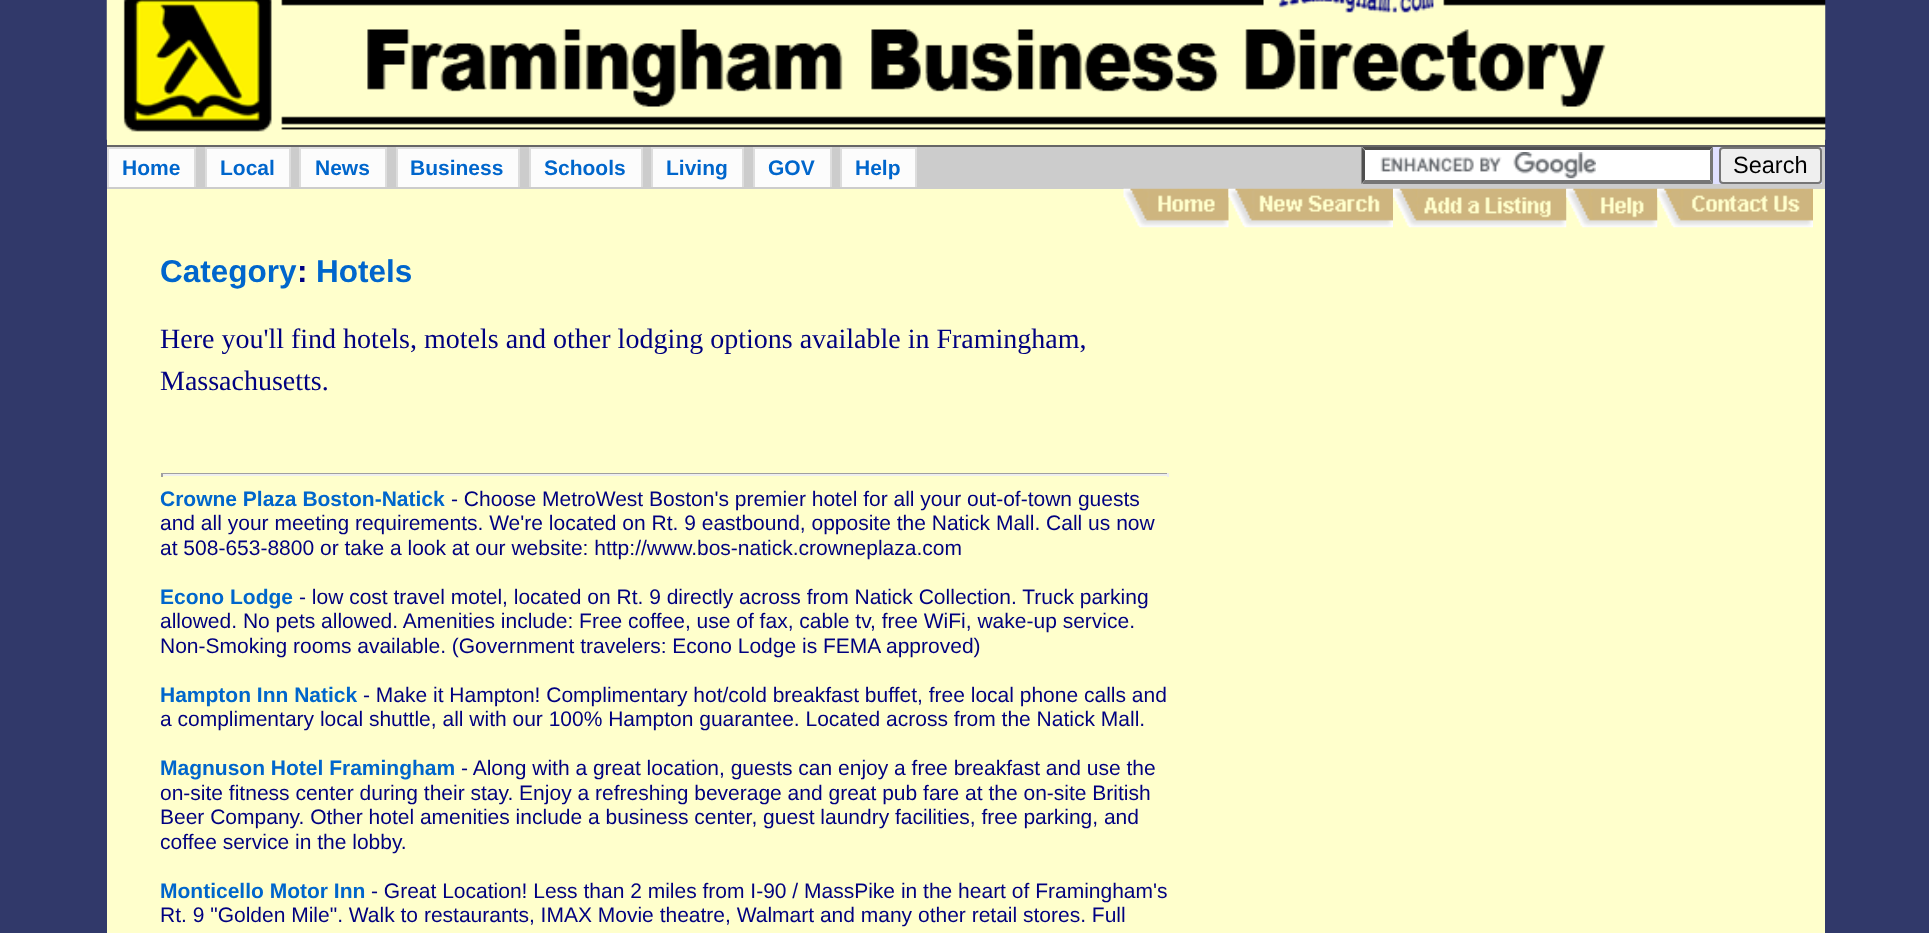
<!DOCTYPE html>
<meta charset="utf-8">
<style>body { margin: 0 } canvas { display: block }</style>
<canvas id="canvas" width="1929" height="933"></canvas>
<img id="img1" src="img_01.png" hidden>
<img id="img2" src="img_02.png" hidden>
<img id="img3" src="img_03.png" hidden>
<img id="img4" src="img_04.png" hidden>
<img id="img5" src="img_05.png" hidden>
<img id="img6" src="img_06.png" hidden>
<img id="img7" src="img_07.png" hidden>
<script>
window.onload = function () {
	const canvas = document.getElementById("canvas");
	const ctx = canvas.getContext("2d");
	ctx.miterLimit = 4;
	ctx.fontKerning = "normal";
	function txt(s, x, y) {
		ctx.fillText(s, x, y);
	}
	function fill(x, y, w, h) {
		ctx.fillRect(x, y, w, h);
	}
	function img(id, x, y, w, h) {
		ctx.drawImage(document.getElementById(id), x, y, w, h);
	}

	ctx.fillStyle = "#31396A";
	fill(0, 0, 1929, 933);
	ctx.fillStyle = "#FFFFCC";
	fill(107, 139, 1718, 794);
	img("img1", 106, 0, 1720, 140);
	ctx.fillStyle = "#CCCCCC";
	fill(107, 147, 1718, 42);
	ctx.fillStyle = "#666666";
	fill(107, 145, 1718, 2);
	ctx.fillStyle = "#FCFCFC";
	fill(109, 149, 85, 38);
	ctx.fillStyle = "#DDDDDD";
	fill(107, 147, 89, 2);
	fill(194, 147, 2, 40);
	fill(107, 147, 2, 40);
	ctx.fillStyle = "#FCFCFC";
	fill(207, 149, 82, 38);
	ctx.fillStyle = "#DDDDDD";
	fill(205, 147, 86, 2);
	fill(289, 147, 2, 40);
	fill(205, 147, 2, 40);
	ctx.fillStyle = "#FCFCFC";
	fill(301, 149, 84, 38);
	ctx.fillStyle = "#DDDDDD";
	fill(299, 147, 88, 2);
	fill(385, 147, 2, 40);
	fill(299, 147, 2, 40);
	ctx.fillStyle = "#FCFCFC";
	fill(398, 149, 120, 38);
	ctx.fillStyle = "#DDDDDD";
	fill(396, 147, 124, 2);
	fill(518, 147, 2, 40);
	fill(396, 147, 2, 40);
	ctx.fillStyle = "#FCFCFC";
	fill(531, 149, 110, 38);
	ctx.fillStyle = "#DDDDDD";
	fill(529, 147, 113, 2);
	fill(641, 147, 2, 40);
	fill(529, 147, 2, 40);
	ctx.fillStyle = "#FCFCFC";
	fill(653, 149, 89, 38);
	ctx.fillStyle = "#DDDDDD";
	fill(651, 147, 93, 2);
	fill(742, 147, 2, 40);
	fill(651, 147, 2, 40);
	ctx.fillStyle = "#FCFCFC";
	fill(755, 149, 75, 38);
	ctx.fillStyle = "#DDDDDD";
	fill(753, 147, 78, 2);
	fill(830, 147, 2, 40);
	fill(753, 147, 2, 40);
	ctx.fillStyle = "#FCFCFC";
	fill(842, 149, 73, 38);
	ctx.fillStyle = "#DDDDDD";
	fill(840, 147, 77, 2);
	fill(915, 147, 2, 40);
	fill(840, 147, 2, 40);
	ctx.fillStyle = "#E0E0FF";
	fill(1713, 147, 109, 37);
	ctx.fillStyle = "#FFFFFF";
	fill(1362, 147, 351, 37);
	img("img2", 1380, 152, 216, 27);
	ctx.fillStyle = "#4F4F4F";
	ctx.beginPath();
	ctx.moveTo(1362, 147);
	ctx.lineTo(1713, 147);
	ctx.lineTo(1710, 150);
	ctx.lineTo(1365, 150);
	ctx.closePath();
	ctx.fill();
	ctx.fillStyle = "#767676";
	ctx.beginPath();
	ctx.moveTo(1713, 147);
	ctx.lineTo(1713, 184);
	ctx.lineTo(1710, 180);
	ctx.lineTo(1710, 150.5);
	ctx.closePath();
	ctx.fill();
	ctx.beginPath();
	ctx.moveTo(1713, 184);
	ctx.lineTo(1362, 184);
	ctx.lineTo(1365, 180);
	ctx.lineTo(1710, 180);
	ctx.closePath();
	ctx.fill();
	ctx.fillStyle = "#4F4F4F";
	ctx.beginPath();
	ctx.moveTo(1361.5, 184);
	ctx.lineTo(1361.5, 147);
	ctx.lineTo(1365, 150.5);
	ctx.lineTo(1365, 180);
	ctx.closePath();
	ctx.fill();
	ctx.fillStyle = "#EFEFEF";
	ctx.beginPath();
	ctx.roundRect(1720, 148, 101, 35, 3);
	ctx.fill();
	ctx.strokeStyle = "#767676";
	ctx.lineWidth = 2;
	ctx.stroke();
	img("img3", 1123, 188, 106, 40);
	img("img4", 1228, 188, 165, 40);
	img("img5", 1393, 188, 174, 40);
	img("img6", 1566, 188, 92, 40);
	img("img7", 1657, 188, 156, 40);
	ctx.fillStyle = "#9F9F9F";
	fill(161, 473, 1008, 1);
	ctx.fillStyle = "#EEEEEE";
	fill(1167, 473, 2, 4);
	fill(161, 474, 1008, 2);
	ctx.fillStyle = "#9F9F9F";
	fill(161, 473, 2, 4);
	ctx.font = "bold 21px Liberation Sans";
	ctx.fillStyle = "#0066CC";
	txt("Home", 122, 175);
	txt("Local", 220, 175);
	txt("News", 315, 175);
	txt("Business", 410, 175);
	txt("Schools", 544, 175);
	txt("Living", 666, 175);
	txt("GOV", 768, 175);
	txt("Help", 855, 175);
	ctx.font = "23.5px Liberation Sans";
	ctx.fillStyle = "#000000";
	txt("Search", 1733, 173);
	ctx.font = "bold 31.5px Liberation Sans";
	ctx.fillStyle = "#0066CC";
	txt("Category", 160, 282);
	ctx.fillStyle = "#000080";
	txt(":", 297, 282);
	ctx.fillStyle = "#0066CC";
	txt("Hotels", 316, 282);
	ctx.font = "28px Liberation Serif";
	ctx.fillStyle = "#000080";
	txt("Here you'll find hotels, motels and other lodging options available in Framingham,", 160, 348);
	txt("Massachusetts.", 160, 390);
	ctx.font = "bold 21px Liberation Sans";
	ctx.fillStyle = "#0066CC";
	txt("Crowne Plaza Boston-Natick", 160, 506);
	ctx.font = "21px Liberation Sans";
	ctx.fillStyle = "#000080";
	txt("- Choose MetroWest Boston's premier hotel for all your out-of-town guests", 451, 506);
	txt("and all your meeting requirements. We're located on Rt. 9 eastbound, opposite the Natick Mall. Call us now", 160, 530);
	txt("at 508-653-8800 or take a look at our website: http://www.bos-natick.crowneplaza.com", 160, 555);
	ctx.font = "bold 21px Liberation Sans";
	ctx.fillStyle = "#0066CC";
	txt("Econo Lodge", 160, 604);
	ctx.font = "21px Liberation Sans";
	ctx.fillStyle = "#000080";
	txt("- low cost travel motel, located on Rt. 9 directly across from Natick Collection. Truck parking", 299, 604);
	txt("allowed. No pets allowed. Amenities include: Free coffee, use of fax, cable tv, free WiFi, wake-up service.", 160, 628);
	txt("Non-Smoking rooms available. (Government travelers: Econo Lodge is FEMA approved)", 160, 653);
	ctx.font = "bold 21px Liberation Sans";
	ctx.fillStyle = "#0066CC";
	txt("Hampton Inn Natick", 160, 702);
	ctx.font = "21px Liberation Sans";
	ctx.fillStyle = "#000080";
	txt("- Make it Hampton! Complimentary hot/cold breakfast buffet, free local phone calls and", 363, 702);
	txt("a complimentary local shuttle, all with our 100% Hampton guarantee. Located across from the Natick Mall.", 160, 726);
	ctx.font = "bold 21px Liberation Sans";
	ctx.fillStyle = "#0066CC";
	txt("Magnuson Hotel Framingham", 160, 775);
	ctx.font = "21px Liberation Sans";
	ctx.fillStyle = "#000080";
	txt("- Along with a great location, guests can enjoy a free breakfast and use the", 461, 775);
	txt("on-site fitness center during their stay. Enjoy a refreshing beverage and great pub fare at the on-site British", 160, 800);
	txt("Beer Company. Other hotel amenities include a business center, guest laundry facilities, free parking, and", 160, 824);
	txt("coffee service in the lobby.", 160, 849);
	ctx.font = "bold 21px Liberation Sans";
	ctx.fillStyle = "#0066CC";
	txt("Monticello Motor Inn", 160, 898);
	ctx.font = "21px Liberation Sans";
	ctx.fillStyle = "#000080";
	txt("- Great Location! Less than 2 miles from I-90 / MassPike in the heart of Framingham's", 371, 898);
	txt("Rt. 9 \"Golden Mile\". Walk to restaurants, IMAX Movie theatre, Walmart and many other retail stores. Full", 160, 922);
};
</script>
